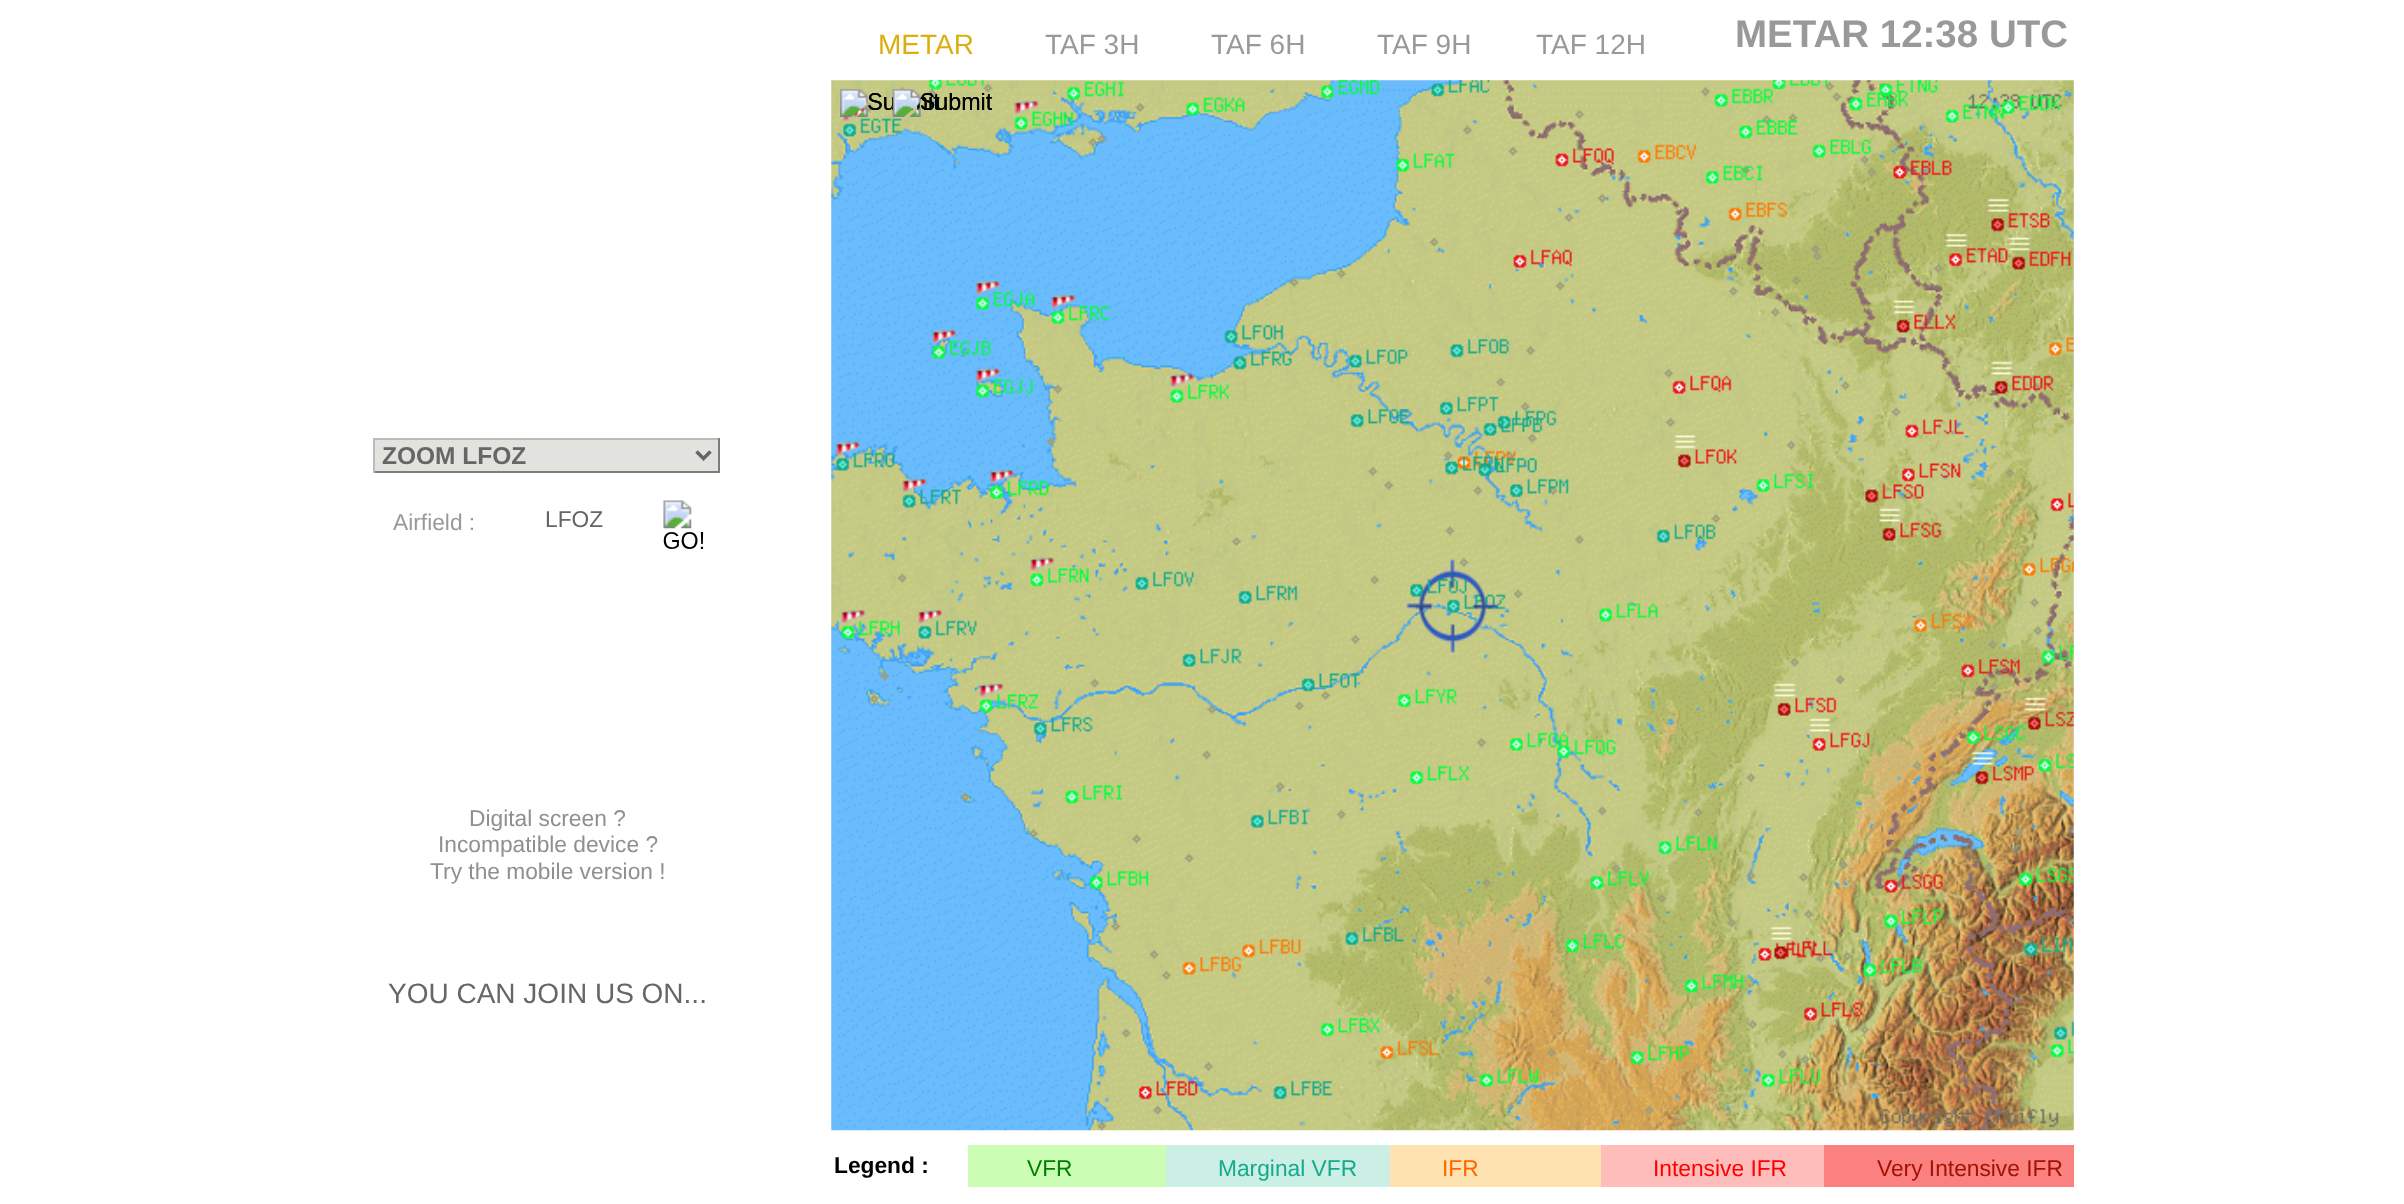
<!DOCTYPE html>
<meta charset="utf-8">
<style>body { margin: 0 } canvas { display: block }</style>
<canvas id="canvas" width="2404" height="1204"></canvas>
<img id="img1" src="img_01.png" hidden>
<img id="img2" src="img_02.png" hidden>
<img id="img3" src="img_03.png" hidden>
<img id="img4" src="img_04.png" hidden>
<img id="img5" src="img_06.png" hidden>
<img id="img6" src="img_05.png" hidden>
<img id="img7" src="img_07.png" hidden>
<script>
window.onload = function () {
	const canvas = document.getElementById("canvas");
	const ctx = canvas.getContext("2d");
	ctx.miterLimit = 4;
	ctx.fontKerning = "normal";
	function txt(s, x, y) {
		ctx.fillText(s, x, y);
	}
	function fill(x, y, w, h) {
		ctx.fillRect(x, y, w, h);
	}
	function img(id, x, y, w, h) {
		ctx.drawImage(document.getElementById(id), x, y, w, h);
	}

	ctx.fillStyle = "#FFFFFF";
	fill(0, 0, 2404, 1204);
	ctx.fillStyle = "#E2E2DE";
	fill(375, 440, 343, 31);
	ctx.fillStyle = "#BBBBBB";
	fill(373, 438, 346, 2);
	ctx.fillStyle = "#7D7D7D";
	fill(718, 438, 2, 35);
	fill(373, 471, 346, 2);
	ctx.fillStyle = "#BBBBBB";
	fill(373, 438, 2, 35);
	ctx.beginPath();
	ctx.moveTo(696.5, 451.5);
	ctx.lineTo(703.5, 458.5);
	ctx.lineTo(710.5, 451.5);
	ctx.strokeStyle = "#666666";
	ctx.lineWidth = 3.5;
	ctx.stroke();
	img("img1", 663, 500, 41, 49);
	img("img2", 831, 80, 1243, 1051);
	img("img3", 836, 80, 1238, 1051);
	img("img4", 840, 89, 100, 28);
	img("img5", 892, 89, 100, 28);
	img("img6", 851, 89, 89, 28);
	img("img7", 892, 89, 100, 28);
	ctx.fillStyle = "#CCFDB5";
	fill(968, 1145, 198, 42);
	ctx.fillStyle = "#CBEFE5";
	fill(1166, 1145, 224, 42);
	ctx.fillStyle = "#FEE3B1";
	fill(1390, 1145, 211, 42);
	ctx.fillStyle = "#FEBCBA";
	fill(1601, 1145, 223, 42);
	ctx.fillStyle = "#FB8181";
	fill(1824, 1145, 250, 42);
	ctx.font = "bold 24.5px Liberation Sans";
	ctx.fillStyle = "#666666";
	txt("ZOOM LFOZ", 382, 464);
	ctx.font = "22.75px Liberation Sans";
	ctx.fillStyle = "#999999";
	txt("Airfield :", 393, 530);
	ctx.fillStyle = "#666666";
	txt("LFOZ", 545, 527);
	ctx.fillStyle = "#909090";
	txt("Digital screen ?", 469, 826);
	txt("Incompatible device ?", 438, 852);
	txt("Try the mobile version !", 430, 879);
	ctx.font = "28px Liberation Sans";
	ctx.fillStyle = "#666666";
	txt("YOU CAN JOIN US ON...", 388, 1003);
	ctx.fillStyle = "#DCAF11";
	txt("METAR", 878, 54);
	ctx.fillStyle = "#999999";
	txt("TAF 3H", 1045, 54);
	txt("TAF 6H", 1211, 54);
	txt("TAF 9H", 1377, 54);
	txt("TAF 12H", 1536, 54);
	ctx.font = "bold 38.5px Liberation Sans";
	txt("METAR 12:38 UTC", 1735, 47);
	ctx.font = "bold 22.75px Liberation Sans";
	ctx.fillStyle = "#000000";
	txt("Legend :", 834, 1173);
	ctx.font = "22.75px Liberation Sans";
	ctx.fillStyle = "#008000";
	txt("VFR", 1027, 1176);
	ctx.fillStyle = "#14AA8C";
	txt("Marginal VFR", 1218, 1176);
	ctx.fillStyle = "#FF6600";
	txt("IFR", 1442, 1176);
	ctx.fillStyle = "#FF0000";
	txt("Intensive IFR", 1653, 1176);
	ctx.fillStyle = "#A41204";
	txt("Very Intensive IFR", 1877, 1176);
};
</script>
